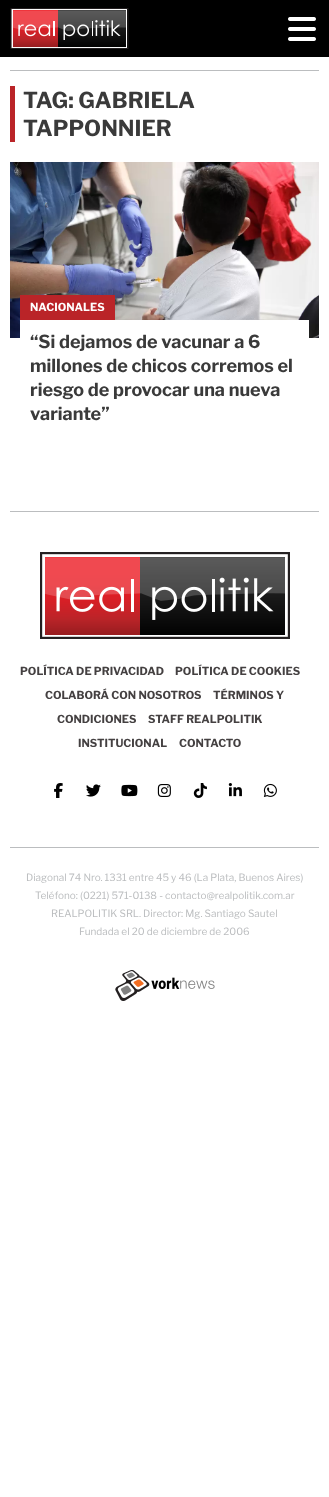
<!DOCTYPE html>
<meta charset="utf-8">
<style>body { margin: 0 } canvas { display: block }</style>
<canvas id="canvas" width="329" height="1497"></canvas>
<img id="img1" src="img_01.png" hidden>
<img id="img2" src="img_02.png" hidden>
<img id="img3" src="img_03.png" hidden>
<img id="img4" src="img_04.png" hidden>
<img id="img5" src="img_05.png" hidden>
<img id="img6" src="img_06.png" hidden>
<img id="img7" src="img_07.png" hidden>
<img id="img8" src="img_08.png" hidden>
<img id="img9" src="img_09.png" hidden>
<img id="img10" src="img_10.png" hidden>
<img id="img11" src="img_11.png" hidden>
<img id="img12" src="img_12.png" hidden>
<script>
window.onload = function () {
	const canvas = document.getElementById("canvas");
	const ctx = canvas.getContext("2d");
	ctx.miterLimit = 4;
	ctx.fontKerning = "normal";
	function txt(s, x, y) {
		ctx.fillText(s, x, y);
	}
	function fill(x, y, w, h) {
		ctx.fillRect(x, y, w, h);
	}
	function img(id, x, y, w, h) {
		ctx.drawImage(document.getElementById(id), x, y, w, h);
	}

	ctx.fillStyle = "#FFFFFF";
	fill(0, 0, 329, 1497);
	ctx.fillStyle = "#000000";
	fill(0, 0, 329, 57);
	img("img1", 10, 8, 119, 41);
	img("img2", 288, 17, 28, 24);
	ctx.fillStyle = "#BBBDBF";
	fill(10, 70, 309, 1);
	ctx.fillStyle = "#BA2428";
	fill(10, 86, 5, 56);
	img("img3", 10, 162, 309, 176);
	fill(20, 295, 95, 25);
	ctx.fillStyle = "#FFFFFF";
	fill(20, 320, 289, 18);
	ctx.fillStyle = "#BBBDBF";
	fill(10, 511, 309, 1);
	fill(10, 847, 309, 1);
	img("img4", 40, 552, 250, 87);
	img("img5", 54, 783, 9, 15);
	img("img6", 86, 784, 15, 13);
	img("img7", 121, 784, 17, 13);
	img("img8", 157, 784, 14, 13);
	img("img9", 193, 783, 14, 15);
	img("img10", 228, 783, 14, 14);
	img("img11", 263, 783, 14, 14);
	img("img12", 115, 970, 100, 31);
	ctx.font = "bold 22px Libre Franklin";
	ctx.fillStyle = "#3A3A3A";
	txt("TAG: GABRIELA", 23, 108);
	txt("TAPPONNIER", 23, 136);
	ctx.font = "bold 11px Libre Franklin";
	ctx.fillStyle = "#FFFFFF";
	txt("NACIONALES", 30, 311);
	ctx.font = "bold 18px Libre Franklin";
	ctx.fillStyle = "#3A3A3A";
	txt("“Si dejamos de vacunar a 6", 30, 348);
	txt("millones de chicos corremos el", 30, 372);
	txt("riesgo de provocar una nueva", 30, 396);
	txt("variante”", 30, 420);
	ctx.font = "bold 11px Libre Franklin";
	ctx.fillStyle = "#444041";
	txt("POLÍTICA DE PRIVACIDAD", 20, 675);
	txt("POLÍTICA DE COOKIES", 175, 675);
	txt("COLABORÁ CON NOSOTROS", 45, 699);
	txt("TÉRMINOS Y", 213, 699);
	txt("CONDICIONES", 57, 723);
	txt("STAFF REALPOLITIK", 148, 723);
	txt("INSTITUCIONAL", 78, 747);
	txt("CONTACTO", 179, 747);
	ctx.font = "10px Libre Franklin";
	ctx.fillStyle = "#BBBDBF";
	txt("Diagonal 74 Nro. 1331 entre 45 y 46 (La Plata, Buenos Aires)", 26, 881);
	txt("Teléfono: (0221) 571-0138 - contacto@realpolitik.com.ar", 35, 899);
	txt("REALPOLITIK SRL. Director: Mg. Santiago Sautel", 51, 917);
	txt("Fundada el 20 de diciembre de 2006", 79, 935);
};
</script>
